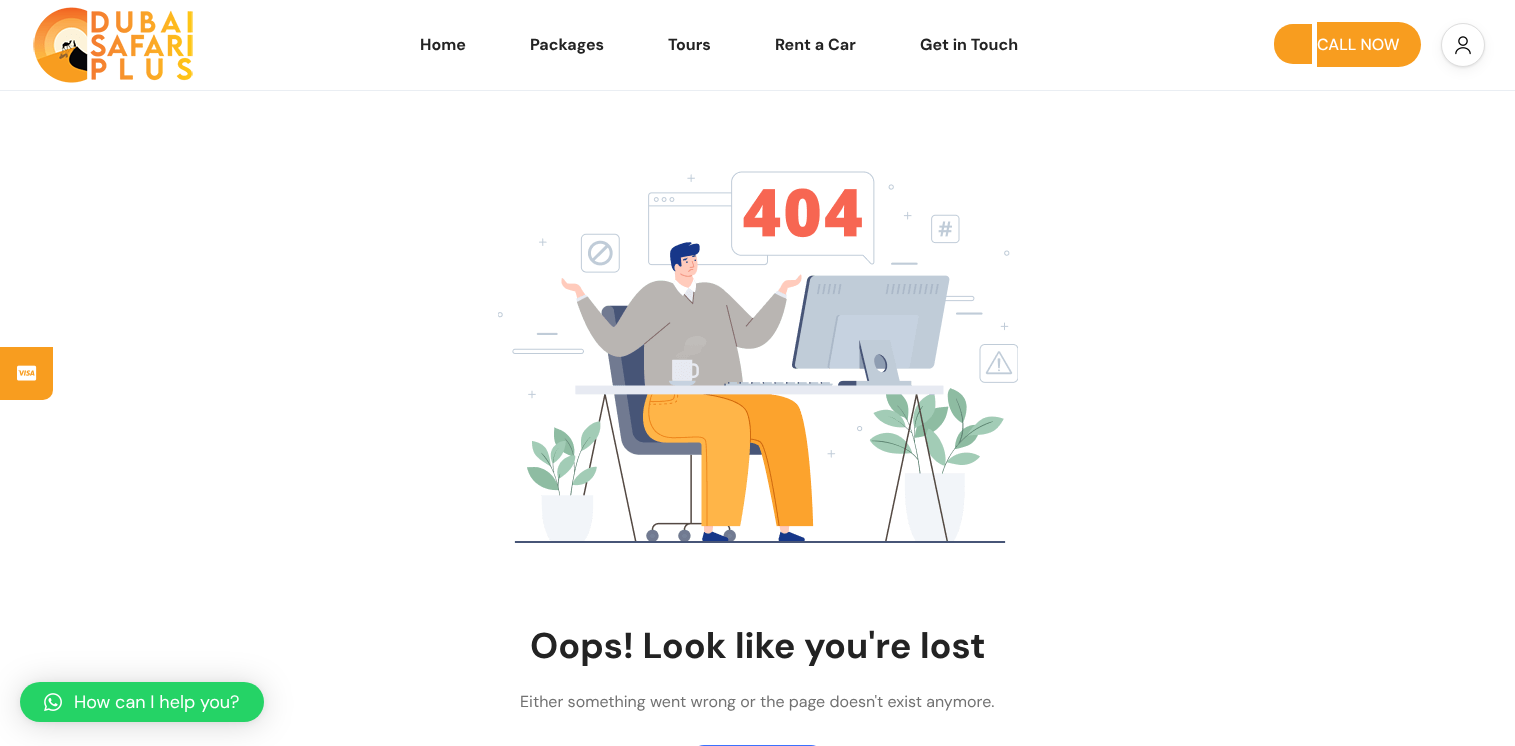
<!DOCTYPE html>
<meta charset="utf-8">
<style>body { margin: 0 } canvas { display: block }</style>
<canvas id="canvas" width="1515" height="746"></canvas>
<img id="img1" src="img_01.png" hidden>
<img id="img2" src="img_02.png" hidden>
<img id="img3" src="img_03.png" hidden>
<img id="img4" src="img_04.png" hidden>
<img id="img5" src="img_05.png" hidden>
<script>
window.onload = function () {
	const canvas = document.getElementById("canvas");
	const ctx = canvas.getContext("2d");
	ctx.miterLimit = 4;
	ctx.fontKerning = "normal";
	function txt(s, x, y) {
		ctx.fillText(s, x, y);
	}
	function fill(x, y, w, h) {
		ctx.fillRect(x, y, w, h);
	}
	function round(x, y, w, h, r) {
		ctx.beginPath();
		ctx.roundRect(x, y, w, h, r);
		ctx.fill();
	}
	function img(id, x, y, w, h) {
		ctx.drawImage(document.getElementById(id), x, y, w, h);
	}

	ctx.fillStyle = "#FFFFFF";
	fill(0, 0, 1515, 746);
	ctx.fillStyle = "#EAEEF3";
	fill(0, 90, 1515, 1);
	img("img1", 33, 7, 160, 76);
	ctx.fillStyle = "#F89D1F";
	ctx.beginPath();
	ctx.roundRect(1274, 24, 38, 40, [19, 0, 0, 19]);
	ctx.fill();
	ctx.beginPath();
	ctx.roundRect(1317, 22, 104, 45, [0, 22.5, 22.5, 0]);
	ctx.fill();
	ctx.fillStyle = "rgba(0, 0, 0, 0.05)";
	ctx.filter = "blur(6px)";
	ctx.beginPath();
	ctx.roundRect(1441, 27, 44, 44, 22);
	ctx.fill();
	ctx.filter = "none";
	ctx.fillStyle = "rgba(0, 0, 0, 0.08)";
	ctx.filter = "blur(1px)";
	ctx.beginPath();
	ctx.roundRect(1441, 24, 44, 44, 22);
	ctx.fill();
	ctx.filter = "none";
	ctx.fillStyle = "#FFFFFF";
	ctx.beginPath();
	ctx.arc(1463, 45, 21.5, 0, Math.PI * 2);
	ctx.fill();
	ctx.strokeStyle = "#DEDEDE";
	ctx.stroke();
	img("img2", 1455, 36, 16, 19);
	ctx.fillStyle = "#F89D1F";
	ctx.beginPath();
	ctx.roundRect(0, 347, 53, 53, [0, 0, 10, 0]);
	ctx.fill();
	img("img3", 17, 365, 20, 16);
	ctx.fillStyle = "rgba(0, 0, 0, 0.16)";
	ctx.filter = "blur(16px)";
	ctx.beginPath();
	ctx.roundRect(20, 684, 244, 40, 20);
	ctx.fill();
	ctx.filter = "none";
	ctx.fillStyle = "rgba(0, 0, 0, 0.06)";
	ctx.filter = "blur(3px)";
	ctx.beginPath();
	ctx.roundRect(20, 683, 244, 40, 20);
	ctx.fill();
	ctx.filter = "none";
	ctx.fillStyle = "#25D366";
	round(20, 682, 244, 40, 20);
	img("img4", 44, 693, 18, 19);
	img("img5", 498, 171, 520, 372);
	ctx.fillStyle = "#3B71FE";
	round(691, 745, 133, 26, 25);
	ctx.font = "bold 16px DM Sans";
	ctx.fillStyle = "#232323";
	txt("Home", 420, 50);
	txt("Packages", 530, 50);
	txt("Tours", 668, 50);
	txt("Rent a Car", 775, 50);
	txt("Get in Touch", 920, 50);
	ctx.font = "500 16px DM Sans";
	ctx.fillStyle = "#FFFFFF";
	txt("CALL NOW", 1317, 50);
	ctx.font = "18px DM Sans";
	txt("How can I help you?", 74, 708);
	ctx.font = "bold 36px DM Sans";
	ctx.fillStyle = "#232323";
	txt("Oops! Look like you're lost", 530, 658);
	ctx.font = "16px DM Sans";
	ctx.fillStyle = "#727272";
	txt("Either something went wrong or the page doesn't exist anymore.", 520, 707);
};
</script>
